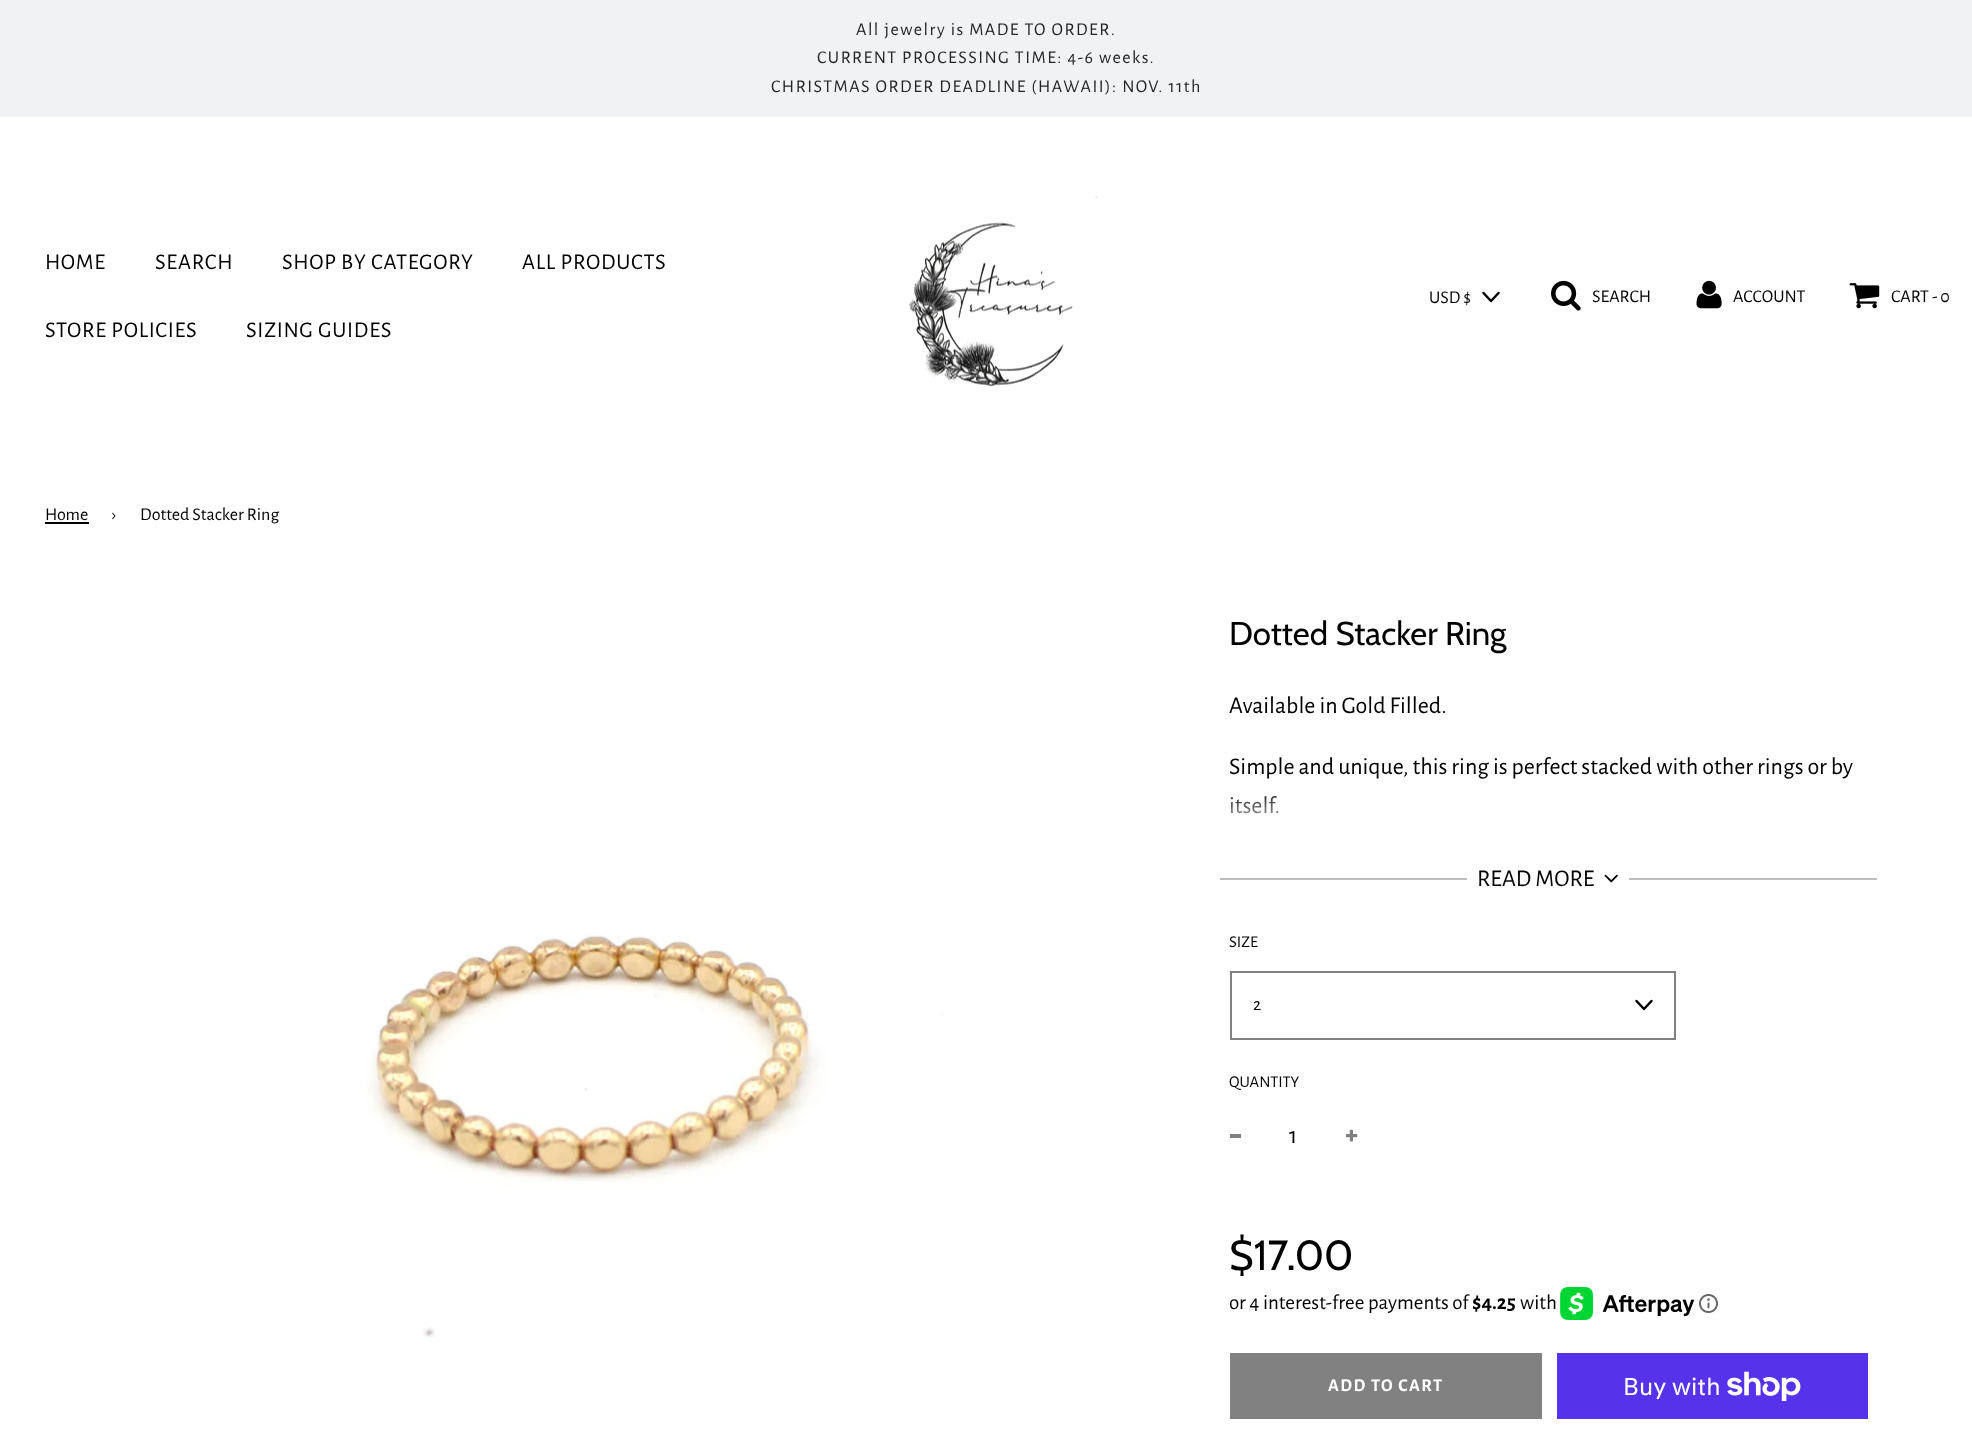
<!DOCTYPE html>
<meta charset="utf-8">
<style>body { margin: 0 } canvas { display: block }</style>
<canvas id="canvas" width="1972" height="1455"></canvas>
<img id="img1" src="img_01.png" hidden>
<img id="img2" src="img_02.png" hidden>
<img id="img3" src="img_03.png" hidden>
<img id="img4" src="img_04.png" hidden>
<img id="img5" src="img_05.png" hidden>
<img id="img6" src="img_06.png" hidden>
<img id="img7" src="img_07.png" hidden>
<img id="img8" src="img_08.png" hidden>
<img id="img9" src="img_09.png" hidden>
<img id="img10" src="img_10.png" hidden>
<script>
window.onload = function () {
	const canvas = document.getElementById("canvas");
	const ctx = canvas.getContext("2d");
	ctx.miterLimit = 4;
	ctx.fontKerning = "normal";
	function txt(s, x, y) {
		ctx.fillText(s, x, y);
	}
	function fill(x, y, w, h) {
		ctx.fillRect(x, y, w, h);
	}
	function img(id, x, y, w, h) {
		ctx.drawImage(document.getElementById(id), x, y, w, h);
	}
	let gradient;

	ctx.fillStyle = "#FFFFFF";
	fill(0, 0, 1972, 1455);
	ctx.fillStyle = "#F1F2F3";
	fill(0, 0, 1972, 117);
	img("img1", 909, 196, 188, 191);
	ctx.beginPath();
	ctx.moveTo(1483.5, 293);
	ctx.lineTo(1491, 301);
	ctx.lineTo(1498.5, 293);
	ctx.strokeStyle = "#000000";
	ctx.lineWidth = 2.5;
	ctx.lineCap = "round";
	ctx.lineJoin = "round";
	ctx.stroke();
	img("img2", 1551, 280, 30, 31);
	img("img3", 1696, 280, 26, 29);
	img("img4", 1849, 283, 31, 26);
	ctx.fillStyle = "#000000";
	fill(45, 522, 44, 2);
	img("img5", 365, 935, 579, 403);
	ctx.fillStyle = "#BCBCBC";
	fill(1220, 878, 247, 2);
	img("img6", 1604, 874, 14, 9);
	fill(1629, 878, 248, 2);
	ctx.strokeStyle = "#808080";
	ctx.lineWidth = 2;
	ctx.lineJoin = "miter";
	ctx.strokeRect(1231, 972, 444, 67);
	ctx.beginPath();
	ctx.moveTo(1636.5, 1001);
	ctx.lineTo(1644, 1009);
	ctx.lineTo(1651.5, 1001);
	ctx.strokeStyle = "#000000";
	ctx.lineWidth = 2.5;
	ctx.lineJoin = "round";
	ctx.stroke();
	ctx.fillStyle = "#808080";
	fill(1230, 1134, 11, 4);
	img("img7", 1346, 1129, 12, 13);
	img("img8", 1560, 1287, 135, 33);
	img("img9", 1699, 1294, 19, 19);
	ctx.fillStyle = "#818181";
	fill(1230, 1353, 312, 66);
	ctx.fillStyle = "#5433EB";
	fill(1557, 1353, 311, 66);
	img("img10", 1727, 1371, 74, 30);
	ctx.letterSpacing = "1.5px";
	ctx.font = "18px Alegreya Sans";
	ctx.fillStyle = "#242424";
	txt("All jewelry is MADE TO ORDER.", 856, 35);
	txt("CURRENT PROCESSING TIME: 4-6 weeks.", 817, 63);
	txt("CHRISTMAS ORDER DEADLINE (HAWAII): NOV. 11th", 771, 92);
	ctx.letterSpacing = "0.75px";
	ctx.font = "22.5px Alegreya Sans";
	ctx.fillStyle = "#000000";
	txt("HOME", 45, 269);
	txt("SEARCH", 155, 269);
	txt("SHOP BY CATEGORY", 282, 269);
	txt("ALL PRODUCTS", 522, 269);
	txt("STORE POLICIES", 45, 337);
	txt("SIZING GUIDES", 246, 337);
	ctx.letterSpacing = "0px";
	ctx.font = "18px Alegreya Sans";
	txt("USD $", 1429, 303);
	txt("SEARCH", 1592, 302);
	txt("ACCOUNT", 1733, 302);
	txt("CART - 0", 1891, 302);
	txt("Home", 45, 520);
	txt("›", 112, 520);
	txt("Dotted Stacker Ring", 140, 520);
	ctx.font = "33px Cabin";
	txt("Dotted Stacker Ring", 1229, 645);
	ctx.font = "24px Alegreya Sans";
	txt("Available in Gold Filled.", 1229, 713);
	txt("Simple and unique, this ring is perfect stacked with other rings or by", 1229, 774);
	txt("itself.", 1229, 813);
	gradient = ctx.createLinearGradient(1549, 689, 1549, 839);
	gradient.addColorStop(0.65, "rgba(255, 255, 255, 0)");
	gradient.addColorStop(1, "#FFFFFF");
	ctx.fillStyle = gradient;
	fill(1231, 796, 48, 18);
	ctx.fillStyle = "#000000";
	txt("READ MORE", 1477, 886);
	ctx.font = "16.5px Alegreya Sans";
	txt("SIZE", 1229, 947);
	ctx.font = "18px Alegreya Sans";
	txt("2", 1253, 1010);
	ctx.font = "16.5px Alegreya Sans";
	txt("QUANTITY", 1229, 1087);
	ctx.font = "24px Alegreya Sans";
	txt("1", 1289, 1143);
	ctx.font = "42px Cabin";
	txt("$17.00", 1229, 1270);
	ctx.font = "21px Alegreya Sans";
	txt("or 4 interest-free payments of", 1229, 1309);
	ctx.font = "bold 21px Alegreya Sans";
	txt("$4.25", 1472, 1309);
	ctx.font = "21px Alegreya Sans";
	txt("with", 1520, 1309);
	ctx.letterSpacing = "1.5px";
	ctx.font = "bold 18px Alegreya Sans";
	ctx.fillStyle = "#FFFFFF";
	txt("ADD TO CART", 1328, 1391);
	ctx.letterSpacing = "0px";
	ctx.font = "24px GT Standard";
	txt("Buy with", 1623, 1395);
};
</script>
